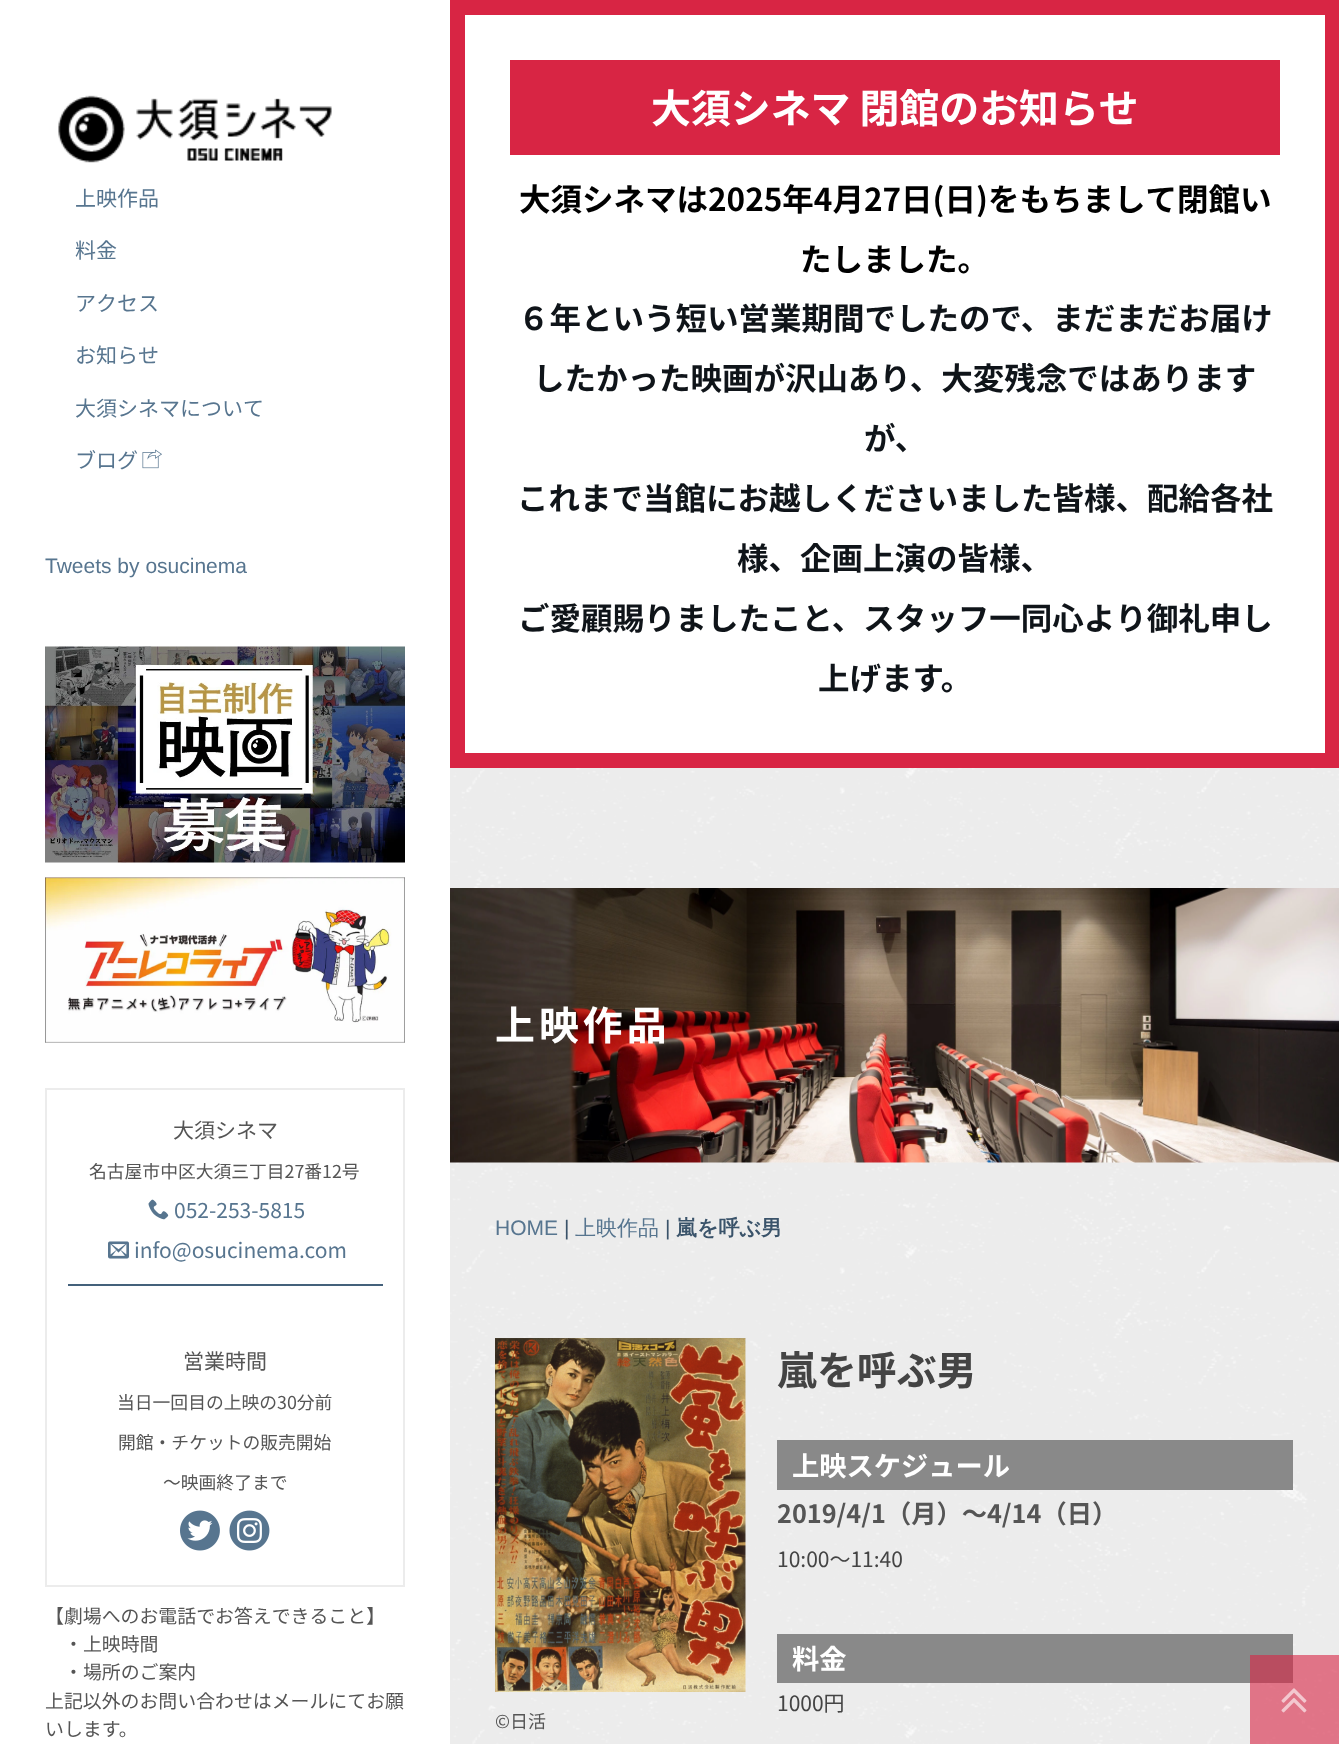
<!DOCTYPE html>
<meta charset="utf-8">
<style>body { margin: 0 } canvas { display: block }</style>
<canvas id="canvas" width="1339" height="1744"></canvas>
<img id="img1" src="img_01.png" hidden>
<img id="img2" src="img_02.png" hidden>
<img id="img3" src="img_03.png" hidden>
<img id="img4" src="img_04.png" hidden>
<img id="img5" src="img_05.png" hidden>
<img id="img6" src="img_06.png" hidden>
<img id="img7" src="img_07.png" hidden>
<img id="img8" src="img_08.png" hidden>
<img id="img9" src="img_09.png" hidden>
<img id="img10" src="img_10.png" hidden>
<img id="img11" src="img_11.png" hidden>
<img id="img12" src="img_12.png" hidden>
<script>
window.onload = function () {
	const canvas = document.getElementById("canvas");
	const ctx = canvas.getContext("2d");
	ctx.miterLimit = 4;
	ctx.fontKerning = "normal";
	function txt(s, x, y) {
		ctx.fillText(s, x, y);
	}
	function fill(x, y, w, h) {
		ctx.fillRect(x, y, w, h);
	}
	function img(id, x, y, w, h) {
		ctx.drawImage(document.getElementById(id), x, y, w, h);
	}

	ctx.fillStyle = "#FFFFFF";
	fill(0, 0, 1339, 1744);
	img("img1", 58, 95, 274, 68);
	img("img2", 142, 449, 20, 20);
	img("img3", 45, 646, 360, 217);
	img("img4", 45, 877, 360, 166);
	ctx.strokeStyle = "#ECECEC";
	ctx.lineWidth = 2;
	ctx.strokeRect(46, 1089, 358, 497);
	img("img5", 148, 1199, 21, 21);
	img("img6", 108, 1241, 21, 18);
	ctx.fillStyle = "#44617B";
	fill(68, 1284, 315, 2);
	img("img7", 180, 1510, 40, 41);
	img("img8", 229, 1510, 41, 41);
	ctx.fillStyle = "#ECECEC";
	fill(450, 768, 889, 976);
	img("img9", 450, 768, 889, 976);
	ctx.strokeStyle = "#D82544";
	ctx.lineWidth = 15;
	ctx.strokeRect(457.5, 7.5, 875, 753);
	ctx.fillStyle = "#D82544";
	fill(510, 60, 770, 95);
	img("img10", 450, 888, 889, 275);
	ctx.fillStyle = "#898989";
	fill(777, 1440, 516, 50);
	fill(777, 1634, 516, 49);
	img("img11", 495, 1338, 251, 354);
	ctx.fillStyle = "rgba(216, 37, 68, 0.6)";
	fill(1250, 1655, 89, 89);
	img("img12", 1281, 1688, 26, 25);
	ctx.font = "21px Noto Sans JP";
	ctx.fillStyle = "#57758F";
	txt("上映作品", 75, 206);
	txt("料金", 75, 258);
	txt("アクセス", 75, 311);
	txt("お知らせ", 75, 363);
	txt("大須シネマについて", 75, 416);
	txt("ブログ", 75, 468);
	ctx.font = "21px Liberation Sans";
	txt("Tweets by osucinema", 45, 573);
	ctx.font = "21px Noto Sans JP";
	ctx.fillStyle = "#555555";
	txt("大須シネマ", 173, 1138);
	ctx.font = "17.8px Noto Sans JP";
	txt("名古屋市中区大須三丁目27番12号", 89, 1178);
	ctx.font = "21px Noto Sans JP";
	ctx.fillStyle = "#57758F";
	txt("052-253-5815", 174, 1218);
	txt("info@osucinema.com", 134, 1258);
	ctx.fillStyle = "#555555";
	txt("営業時間", 183, 1369);
	ctx.font = "17.8px Noto Sans JP";
	txt("当日一回目の上映の30分前", 117, 1409);
	txt("開館・チケットの販売開始", 118, 1449);
	txt("〜映画終了まで", 163, 1489);
	ctx.font = "18.9px Noto Sans JP";
	txt("【劇場へのお電話でお答えできること】", 45, 1623);
	txt("・上映時間", 64, 1651);
	txt("・場所のご案内", 64, 1679);
	txt("上記以外のお問い合わせはメールにてお願", 45, 1708);
	txt("いします。", 45, 1736);
	ctx.font = "bold 39.9px Noto Sans JP";
	ctx.fillStyle = "#FFFFFF";
	txt("大須シネマ 閉館のお知らせ", 651, 123);
	ctx.font = "bold 31.5px Noto Sans JP";
	ctx.fillStyle = "#000000";
	txt("大須シネマは2025年4月27日(日)をもちまして閉館い", 519, 211);
	txt("たしました。", 800, 271);
	ctx.fillStyle = "#0F1419";
	txt("６年という短い営業期間でしたので、まだまだお届け", 518, 330);
	txt("したかった映画が沢山あり、大変残念ではあります", 533, 390);
	txt("が、", 864, 450);
	txt("これまで当館にお越しくださいました皆様、配給各社", 517, 510);
	txt("様、企画上演の皆様、", 737, 570);
	txt("ご愛顧賜りましたこと、スタッフ一同心より御礼申し", 518, 630);
	txt("上げます。", 818, 690);
	ctx.letterSpacing = "4px";
	ctx.font = "bold 39.9px Noto Sans JP";
	ctx.fillStyle = "#FFFFFF";
	txt("上映作品", 495, 1040);
	ctx.letterSpacing = "0px";
	ctx.font = "21px Liberation Sans";
	ctx.fillStyle = "#57758F";
	txt("HOME", 495, 1235);
	ctx.fillStyle = "#3A536A";
	txt("|", 564, 1235);
	ctx.font = "500 21px WenQuanYi Zen Hei";
	ctx.fillStyle = "#57758F";
	txt("上映作品", 575, 1235);
	ctx.font = "21px Liberation Sans";
	ctx.fillStyle = "#3A536A";
	txt("|", 665, 1235);
	ctx.font = "bold 21px WenQuanYi Zen Hei";
	txt("嵐を呼ぶ男", 676, 1235);
	ctx.font = "bold 39.9px Noto Sans JP";
	ctx.fillStyle = "#444444";
	txt("嵐を呼ぶ男", 777, 1385);
	ctx.font = "bold 27.25px Noto Sans JP";
	ctx.fillStyle = "#FFFFFF";
	txt("上映スケジュール", 792, 1476);
	ctx.font = "bold 25.25px Noto Sans JP";
	ctx.fillStyle = "#555555";
	txt("2019/4/1（月）〜4/14（日）", 777, 1523);
	ctx.font = "21px Noto Sans JP";
	ctx.fillStyle = "#444444";
	txt("10:00〜11:40", 777, 1567);
	ctx.font = "bold 27.25px Noto Sans JP";
	ctx.fillStyle = "#FFFFFF";
	txt("料金", 792, 1669);
	ctx.font = "21px Noto Sans JP";
	ctx.fillStyle = "#444444";
	txt("1000円", 777, 1711);
	ctx.font = "18px Noto Sans JP";
	ctx.fillStyle = "#555555";
	txt("©日活", 495, 1728);
};
</script>
